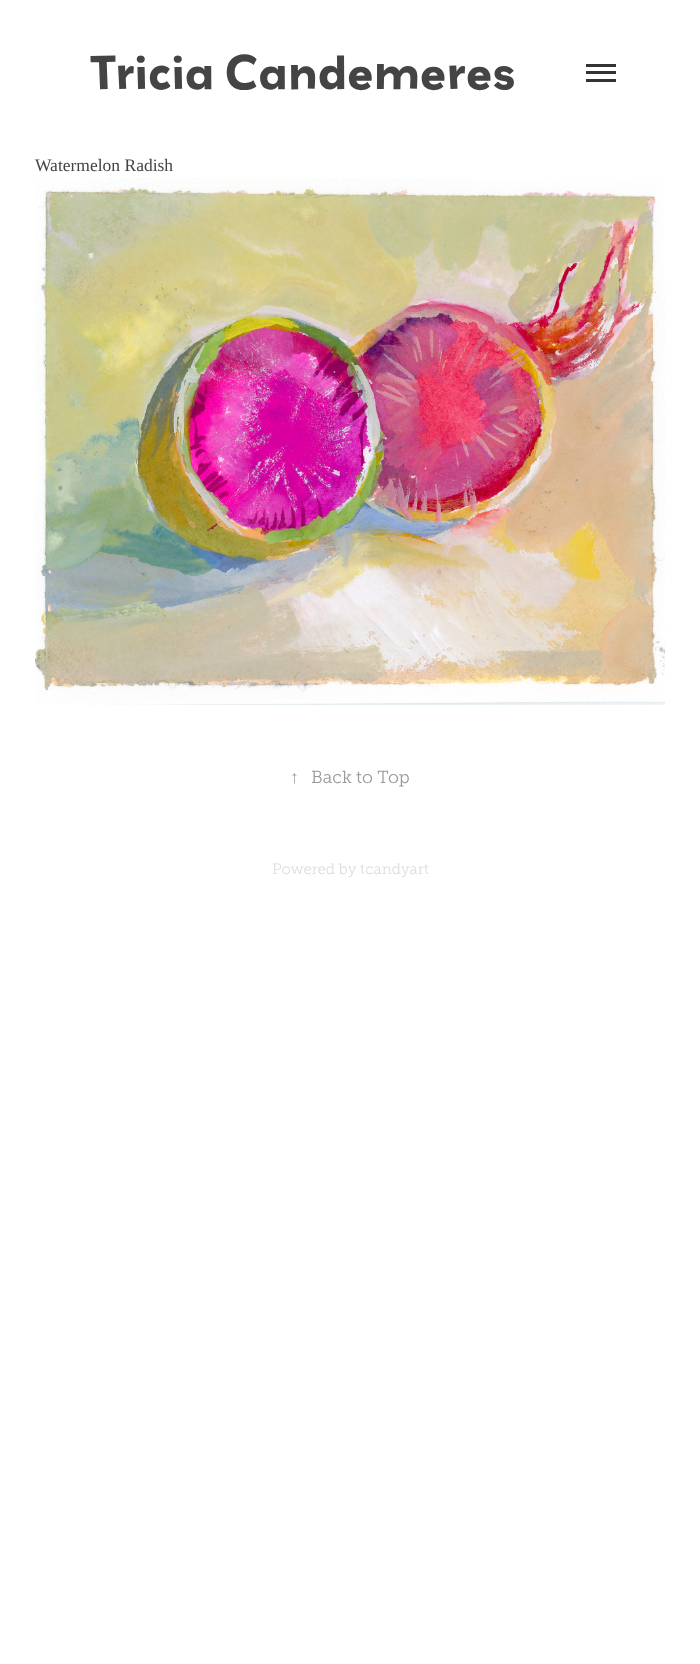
<!DOCTYPE html>
<meta charset="utf-8">
<style>body { margin: 0 } canvas { display: block }</style>
<canvas id="canvas" width="700" height="1664"></canvas>
<img id="img1" src="img_01.png" hidden>
<script>
window.onload = function () {
	const canvas = document.getElementById("canvas");
	const ctx = canvas.getContext("2d");
	ctx.miterLimit = 4;
	ctx.fontKerning = "normal";
	function txt(s, x, y) {
		ctx.fillText(s, x, y);
	}
	function fill(x, y, w, h) {
		ctx.fillRect(x, y, w, h);
	}
	function img(id, x, y, w, h) {
		ctx.drawImage(document.getElementById(id), x, y, w, h);
	}

	ctx.fillStyle = "#FFFFFF";
	fill(0, 0, 700, 1664);
	ctx.fillStyle = "#333333";
	fill(586, 64, 30, 3);
	fill(586, 71, 30, 3);
	fill(586, 79, 30, 3);
	img("img1", 35, 177, 630, 528);
	ctx.font = "bold 42.5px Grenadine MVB";
	ctx.fillStyle = "#444444";
	txt("Tricia Candemeres", 89, 89);
	ctx.font = "17.5px Liberation Serif";
	txt("Watermelon Radish", 35, 171);
	ctx.fillStyle = "#999999";
	txt("↑", 290, 783);
	ctx.font = "300 17.5px Museo Slab";
	txt("Back to Top", 311, 783);
	ctx.font = "300 15px Museo Slab";
	ctx.fillStyle = "#DDDDDD";
	txt("Powered by tcandyart", 272, 874);
};
</script>
